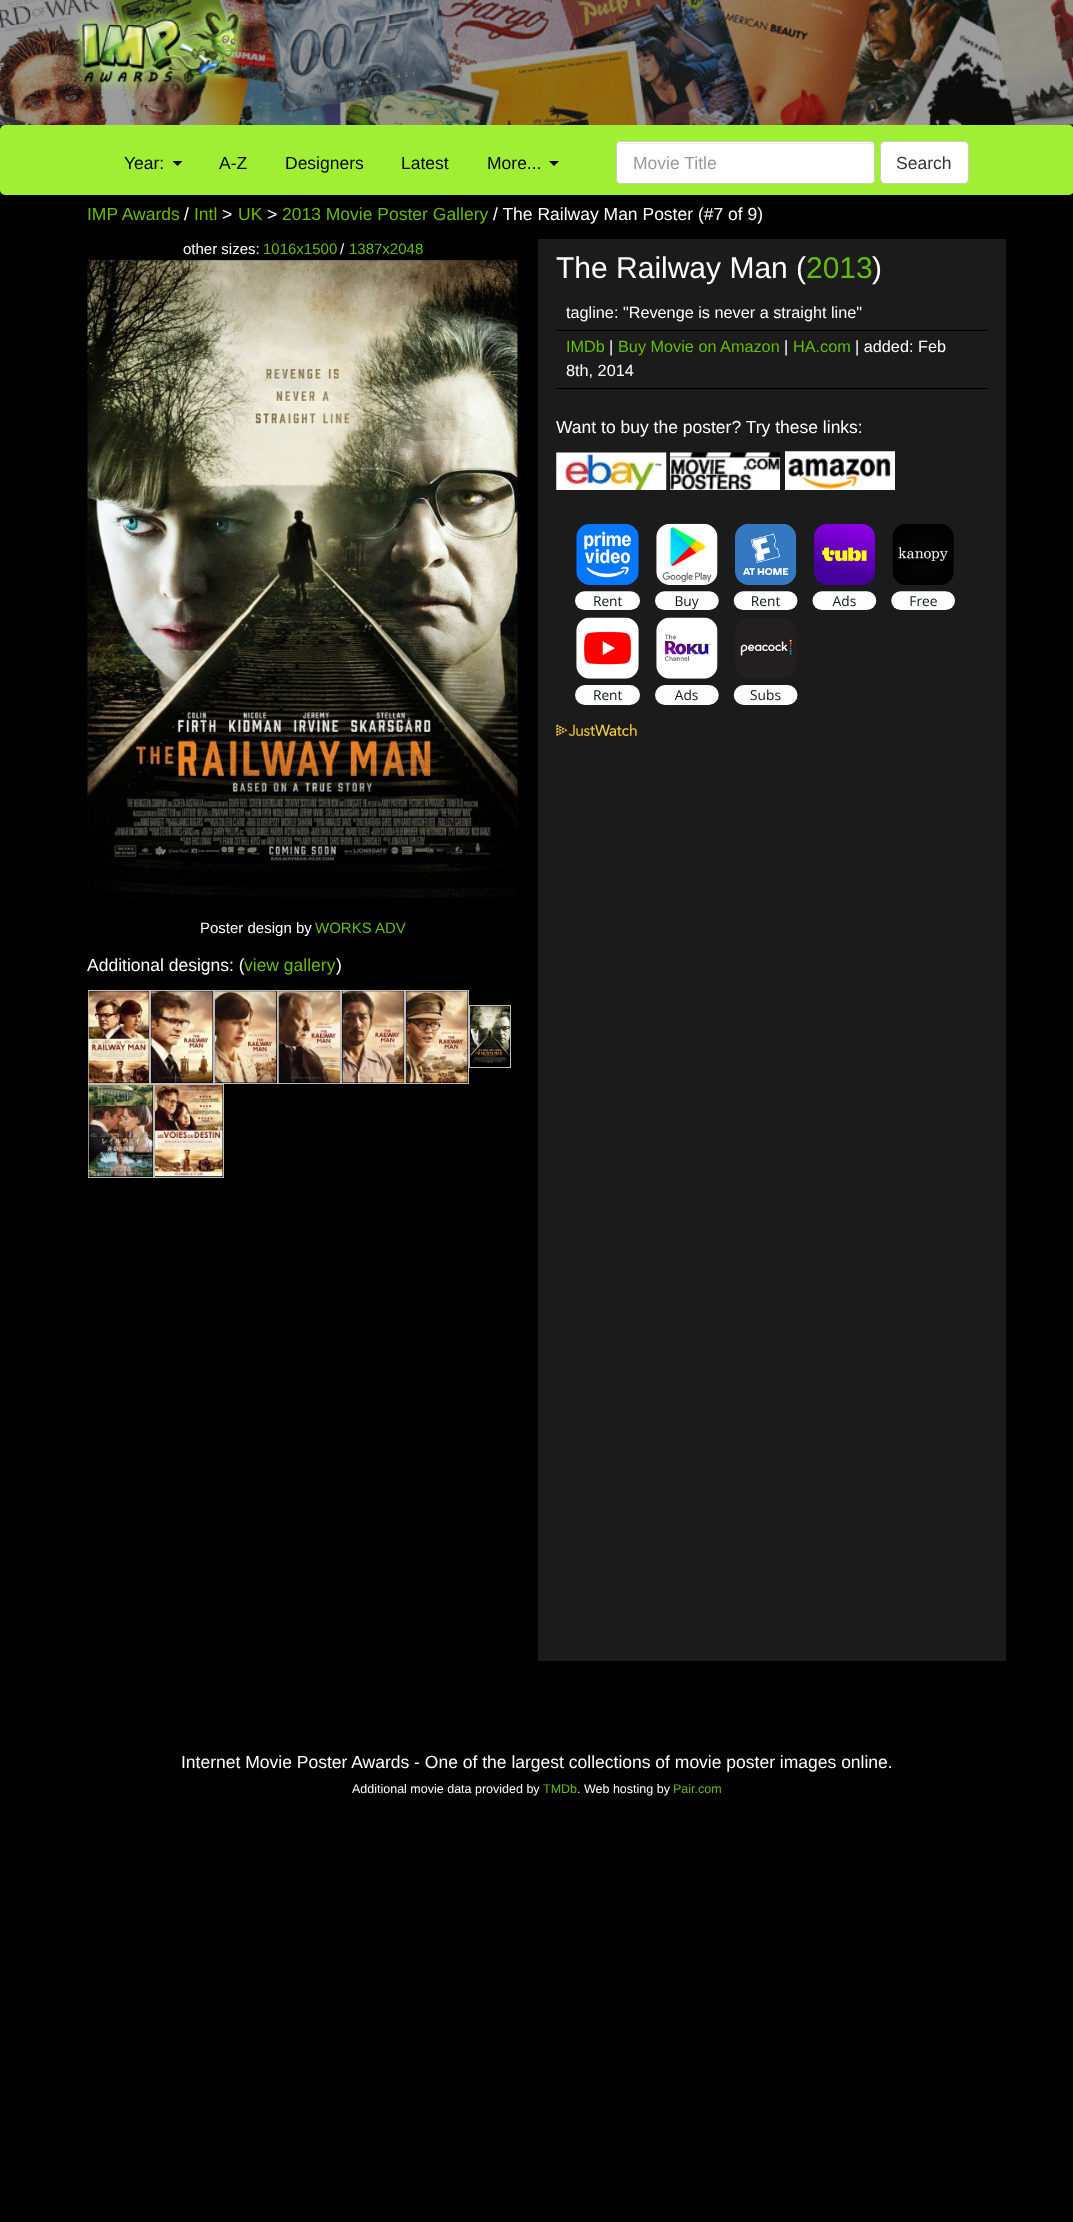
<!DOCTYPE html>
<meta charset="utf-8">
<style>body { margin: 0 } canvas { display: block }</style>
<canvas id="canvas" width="1073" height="2222"></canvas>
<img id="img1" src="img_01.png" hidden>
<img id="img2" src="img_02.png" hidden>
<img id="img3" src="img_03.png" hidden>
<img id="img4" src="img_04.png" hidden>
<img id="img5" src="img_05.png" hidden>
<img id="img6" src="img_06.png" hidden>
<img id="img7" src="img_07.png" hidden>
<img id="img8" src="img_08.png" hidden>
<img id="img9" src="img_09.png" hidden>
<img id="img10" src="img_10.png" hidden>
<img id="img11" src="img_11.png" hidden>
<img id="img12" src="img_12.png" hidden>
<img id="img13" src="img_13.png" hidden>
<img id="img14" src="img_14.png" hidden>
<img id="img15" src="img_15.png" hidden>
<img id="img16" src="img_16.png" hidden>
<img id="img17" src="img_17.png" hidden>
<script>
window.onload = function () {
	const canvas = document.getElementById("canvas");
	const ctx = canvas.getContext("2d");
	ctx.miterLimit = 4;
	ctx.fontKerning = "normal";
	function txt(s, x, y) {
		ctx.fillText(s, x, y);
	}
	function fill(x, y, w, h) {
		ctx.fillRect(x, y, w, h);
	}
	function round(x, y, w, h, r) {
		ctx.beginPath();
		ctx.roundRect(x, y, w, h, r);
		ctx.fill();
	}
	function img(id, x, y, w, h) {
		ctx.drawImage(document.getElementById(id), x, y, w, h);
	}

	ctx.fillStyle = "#000000";
	fill(0, 0, 1073, 2222);
	img("img1", 0, 0, 1073, 125);
	img("img2", 72, 3, 176, 89);
	ctx.fillStyle = "#A1EF34";
	round(0, 125, 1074, 70, 5);
	ctx.fillStyle = "#000000";
	ctx.beginPath();
	ctx.moveTo(172.5, 161);
	ctx.lineTo(182.5, 161);
	ctx.lineTo(177.5, 166);
	ctx.closePath();
	ctx.fill();
	ctx.beginPath();
	ctx.moveTo(549, 161);
	ctx.lineTo(559, 161);
	ctx.lineTo(554, 166);
	ctx.closePath();
	ctx.fill();
	ctx.fillStyle = "#FFFFFF";
	round(616, 141, 259, 43, 5);
	ctx.fillStyle = "#ECECEC";
	ctx.beginPath();
	ctx.moveTo(621, 144);
	ctx.lineTo(870, 144);
	ctx.bezierCurveTo(872, 144, 874, 145, 874, 148);
	ctx.lineTo(874, 147);
	ctx.bezierCurveTo(874, 145, 872, 143, 870, 143);
	ctx.lineTo(622, 143);
	ctx.bezierCurveTo(620, 143, 618, 145, 618, 147);
	ctx.lineTo(618, 148);
	ctx.bezierCurveTo(618, 145, 619, 144, 621, 144);
	ctx.closePath();
	ctx.fill();
	ctx.beginPath();
	ctx.roundRect(616.5, 141.5, 258, 42, 4.5);
	ctx.strokeStyle = "#CCCCCC";
	ctx.stroke();
	ctx.fillStyle = "#FFFFFF";
	ctx.beginPath();
	ctx.roundRect(880.5, 141.5, 88, 42, 4.5);
	ctx.fill();
	ctx.stroke();
	img("img3", 87, 260, 431, 638);
	ctx.strokeStyle = "#BCBCBC";
	ctx.strokeRect(88.5, 990.5, 61, 93);
	ctx.strokeRect(150.5, 990.5, 63, 93);
	ctx.strokeRect(214.5, 990.5, 63, 93);
	ctx.strokeRect(278.5, 990.5, 62, 93);
	ctx.strokeRect(341.5, 990.5, 63, 93);
	ctx.strokeRect(405.5, 990.5, 63, 93);
	img("img4", 88, 991, 61, 92);
	img("img5", 151, 991, 62, 92);
	img("img6", 215, 991, 62, 92);
	img("img7", 278, 991, 62, 92);
	img("img8", 342, 991, 62, 92);
	img("img9", 406, 991, 62, 92);
	ctx.strokeRect(469.5, 1005.5, 41, 62);
	img("img10", 470, 1006, 40, 60);
	ctx.strokeRect(88.5, 1084.5, 65, 93);
	ctx.strokeRect(154.5, 1084.5, 69, 93);
	img("img11", 88, 1085, 65, 92);
	img("img12", 155, 1085, 68, 92);
	ctx.fillStyle = "#1B1B1B";
	fill(538, 239, 468, 1422);
	ctx.fillStyle = "#000000";
	fill(556, 330, 432, 1);
	fill(556, 388, 432, 1);
	img("img13", 556, 452, 111, 38);
	img("img14", 670, 452, 110, 38);
	img("img15", 785, 451, 110, 39);
	img("img16", 575, 523, 380, 182);
	img("img17", 556, 724, 81, 13);
	ctx.font = "17.5px Liberation Sans";
	txt("Year:", 124, 169);
	txt("A-Z", 219, 169);
	txt("Designers", 285, 169);
	txt("Latest", 401, 169);
	txt("More...", 487, 169);
	ctx.fillStyle = "#999999";
	txt("Movie Title", 633, 169);
	ctx.fillStyle = "#333333";
	txt("Search", 896, 169);
	ctx.fillStyle = "#66BD04";
	txt("IMP Awards", 87, 220);
	ctx.fillStyle = "#FFFFFF";
	txt("/", 184, 220);
	ctx.fillStyle = "#66BD04";
	txt("Intl", 194, 220);
	ctx.fillStyle = "#FFFFFF";
	txt(">", 222, 220);
	ctx.fillStyle = "#66BD04";
	txt("UK", 238, 220);
	ctx.fillStyle = "#FFFFFF";
	txt(">", 267, 220);
	ctx.fillStyle = "#66BD04";
	txt("2013 Movie Poster Gallery", 282, 220);
	ctx.fillStyle = "#FFFFFF";
	txt("/ The Railway Man Poster (#7 of 9)", 493, 220);
	ctx.font = "15px Liberation Sans";
	txt("other sizes:", 183, 254);
	ctx.fillStyle = "#66BD04";
	txt("1016x1500", 263, 254);
	ctx.fillStyle = "#FFFFFF";
	txt("/", 340, 254);
	ctx.fillStyle = "#66BD04";
	txt("1387x2048", 349, 254);
	ctx.fillStyle = "#FFFFFF";
	txt("Poster design by", 200, 933);
	ctx.fillStyle = "#66BD04";
	txt("WORKS ADV", 315, 933);
	ctx.font = "17.5px Liberation Sans";
	ctx.fillStyle = "#FFFFFF";
	txt("Additional designs: (", 87, 971);
	ctx.fillStyle = "#66BD04";
	txt("view gallery", 244, 971);
	ctx.fillStyle = "#FFFFFF";
	txt(")", 336, 971);
	ctx.font = "30px Liberation Sans";
	txt("The Railway Man (", 556, 278);
	ctx.fillStyle = "#66BD04";
	txt("2013", 806, 278);
	ctx.fillStyle = "#FFFFFF";
	txt(")", 872, 278);
	ctx.font = "16.25px Liberation Sans";
	txt("tagline: \"Revenge is never a straight line\"", 566, 318);
	ctx.fillStyle = "#66BD04";
	txt("IMDb", 566, 352);
	ctx.fillStyle = "#FFFFFF";
	txt("|", 609, 352);
	ctx.fillStyle = "#66BD04";
	txt("Buy Movie on Amazon", 618, 352);
	ctx.fillStyle = "#FFFFFF";
	txt("|", 784, 352);
	ctx.fillStyle = "#66BD04";
	txt("HA.com", 793, 352);
	ctx.fillStyle = "#FFFFFF";
	txt("| added: Feb", 855, 352);
	txt("8th, 2014", 566, 376);
	ctx.font = "17.5px Liberation Sans";
	txt("Want to buy the poster? Try these links:", 556, 433);
	txt("Internet Movie Poster Awards - One of the largest collections of movie poster images online.", 181, 1768);
	ctx.font = "12.5px Liberation Sans";
	txt("Additional movie data provided by", 352, 1793);
	ctx.fillStyle = "#66BD04";
	txt("TMDb", 543, 1793);
	ctx.fillStyle = "#FFFFFF";
	txt(". Web hosting by", 577, 1793);
	ctx.fillStyle = "#66BD04";
	txt("Pair.com", 673, 1793);
};
</script>
